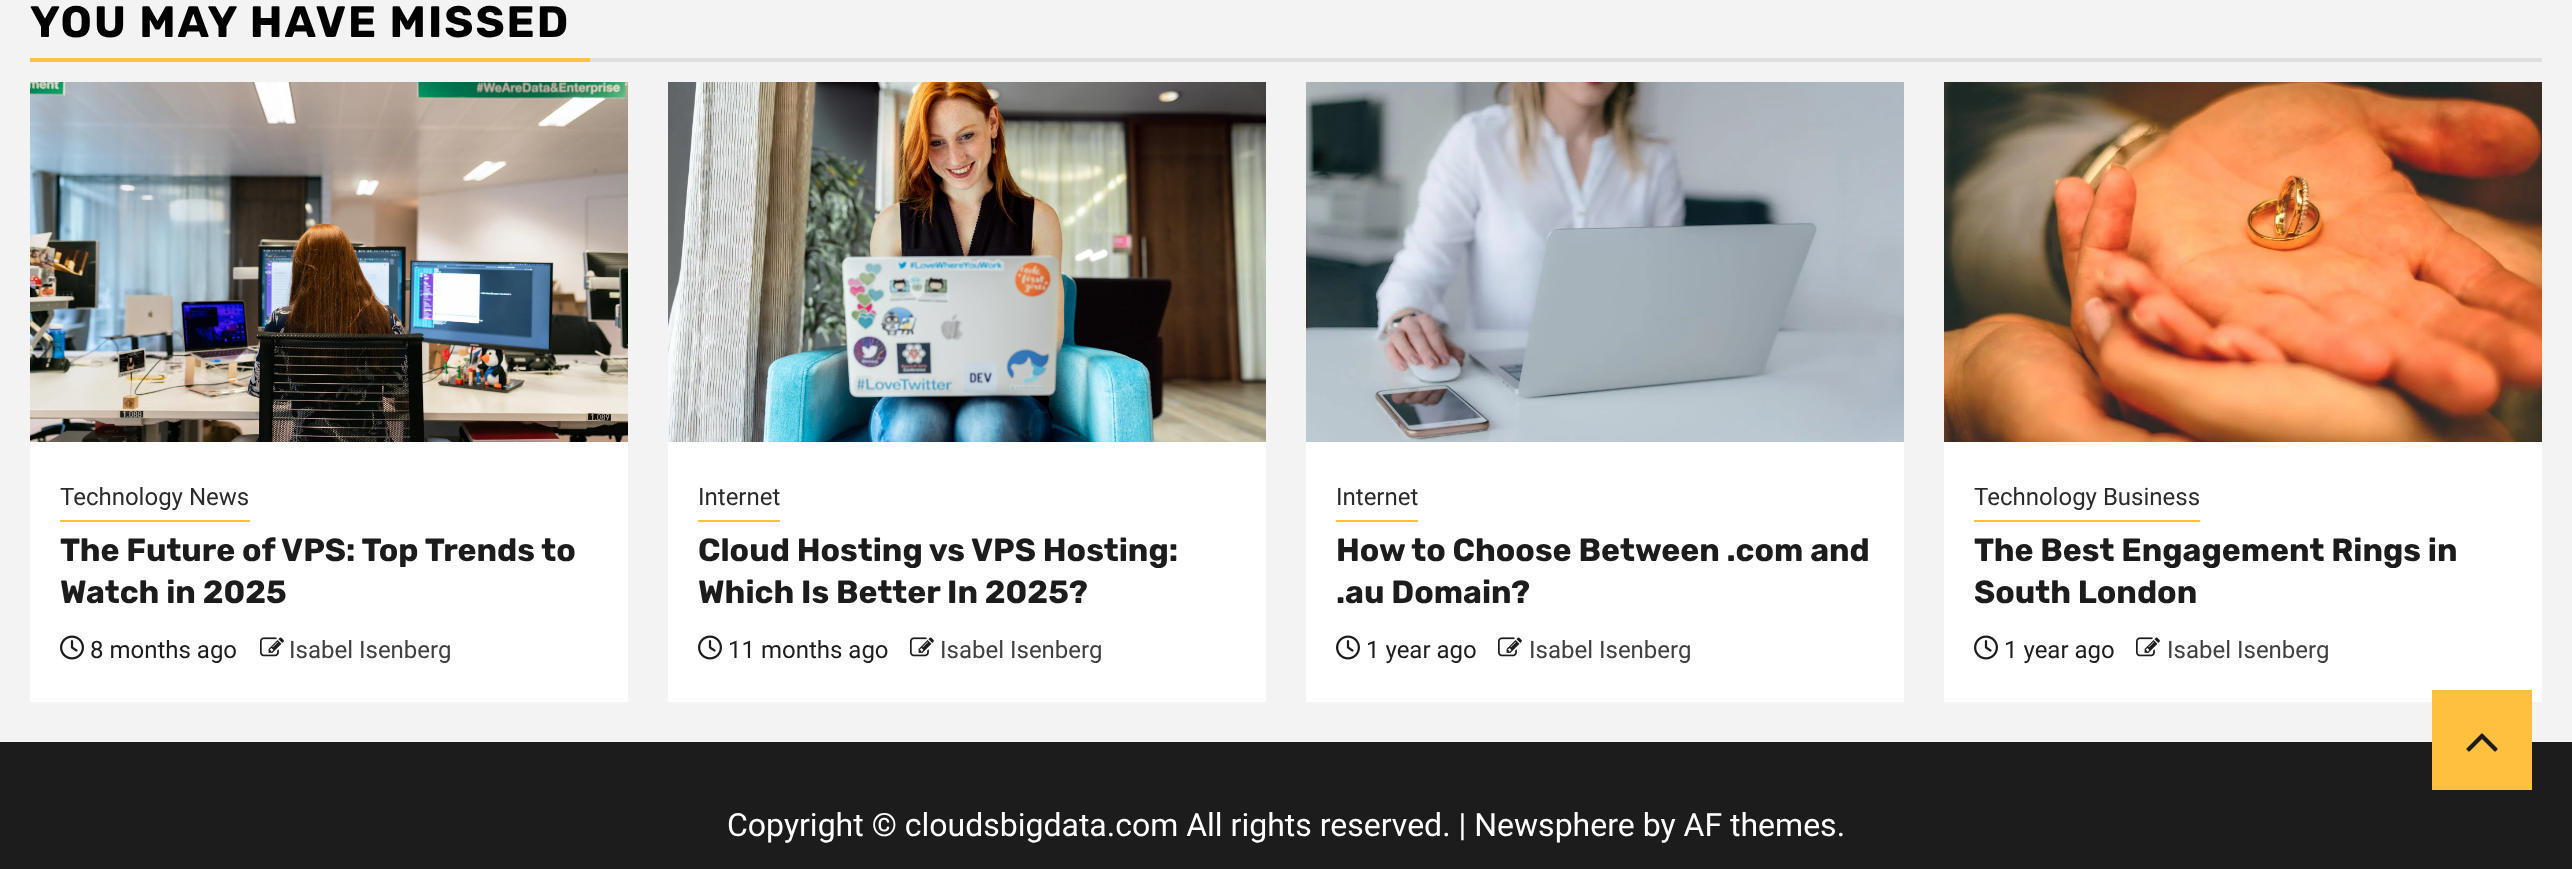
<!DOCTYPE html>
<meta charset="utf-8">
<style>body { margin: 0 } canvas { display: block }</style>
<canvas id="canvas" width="2572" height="869"></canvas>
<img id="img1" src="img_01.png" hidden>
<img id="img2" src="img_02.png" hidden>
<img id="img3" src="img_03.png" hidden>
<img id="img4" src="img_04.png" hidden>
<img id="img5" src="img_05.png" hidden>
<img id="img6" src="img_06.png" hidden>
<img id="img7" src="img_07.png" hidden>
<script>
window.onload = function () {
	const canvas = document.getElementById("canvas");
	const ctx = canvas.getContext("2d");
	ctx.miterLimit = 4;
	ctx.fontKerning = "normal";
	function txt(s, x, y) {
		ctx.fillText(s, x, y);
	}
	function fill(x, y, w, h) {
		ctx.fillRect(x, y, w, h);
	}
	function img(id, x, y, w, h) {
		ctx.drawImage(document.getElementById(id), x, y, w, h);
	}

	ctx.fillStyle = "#F3F3F3";
	fill(0, 0, 2572, 869);
	ctx.fillStyle = "#FFBF3F";
	fill(30, 58, 560, 4);
	ctx.fillStyle = "#DEDEDE";
	fill(590, 58, 1952, 4);
	ctx.fillStyle = "#FFFFFF";
	fill(30, 442, 598, 260);
	img("img1", 30, 82, 598, 360);
	ctx.fillStyle = "#FFBF3F";
	fill(60, 520, 190, 2);
	img("img2", 60, 635, 24, 25);
	img("img3", 260, 637, 24, 20);
	ctx.fillStyle = "#FFFFFF";
	fill(668, 442, 598, 260);
	img("img4", 668, 82, 598, 360);
	ctx.fillStyle = "#FFBF3F";
	fill(698, 520, 82, 2);
	img("img2", 698, 635, 24, 25);
	img("img3", 910, 637, 24, 20);
	ctx.fillStyle = "#FFFFFF";
	fill(1306, 442, 598, 260);
	img("img5", 1306, 82, 598, 360);
	ctx.fillStyle = "#FFBF3F";
	fill(1336, 520, 82, 2);
	img("img2", 1336, 635, 24, 25);
	img("img3", 1498, 637, 24, 20);
	ctx.fillStyle = "#FFFFFF";
	fill(1944, 442, 598, 260);
	img("img6", 1944, 82, 598, 360);
	ctx.fillStyle = "#FFBF3F";
	fill(1974, 520, 226, 2);
	img("img2", 1974, 635, 24, 25);
	img("img3", 2136, 637, 24, 20);
	ctx.fillStyle = "#1C1C1C";
	fill(0, 742, 2572, 127);
	ctx.fillStyle = "#FFBF3F";
	fill(2432, 690, 100, 100);
	img("img7", 2466, 733, 32, 19);
	ctx.letterSpacing = "2px";
	ctx.font = "bold 44px Rubik";
	ctx.fillStyle = "#000000";
	txt("YOU MAY HAVE MISSED", 30, 37);
	ctx.letterSpacing = "0px";
	ctx.font = "24px Roboto";
	ctx.fillStyle = "#2B2B2B";
	txt("Technology News", 60, 505);
	ctx.font = "bold 32px Rubik";
	ctx.fillStyle = "#1C1C1C";
	txt("The Future of VPS: Top Trends to", 60, 561);
	txt("Watch in 2025", 60, 603);
	ctx.font = "24px Roboto";
	txt("8 months ago", 90, 658);
	ctx.fillStyle = "#404040";
	txt("Isabel Isenberg", 289, 658);
	ctx.fillStyle = "#2B2B2B";
	txt("Internet", 698, 505);
	ctx.font = "bold 32px Rubik";
	ctx.fillStyle = "#1C1C1C";
	txt("Cloud Hosting vs VPS Hosting:", 698, 561);
	txt("Which Is Better In 2025?", 698, 603);
	ctx.font = "24px Roboto";
	txt("11 months ago", 728, 658);
	ctx.fillStyle = "#404040";
	txt("Isabel Isenberg", 940, 658);
	ctx.fillStyle = "#2B2B2B";
	txt("Internet", 1336, 505);
	ctx.font = "bold 32px Rubik";
	ctx.fillStyle = "#1C1C1C";
	txt("How to Choose Between .com and", 1336, 561);
	txt(".au Domain?", 1336, 603);
	ctx.font = "24px Roboto";
	txt("1 year ago", 1366, 658);
	ctx.fillStyle = "#404040";
	txt("Isabel Isenberg", 1529, 658);
	ctx.fillStyle = "#2B2B2B";
	txt("Technology Business", 1974, 505);
	ctx.font = "bold 32px Rubik";
	ctx.fillStyle = "#1C1C1C";
	txt("The Best Engagement Rings in", 1974, 561);
	txt("South London", 1974, 603);
	ctx.font = "24px Roboto";
	txt("1 year ago", 2004, 658);
	ctx.fillStyle = "#404040";
	txt("Isabel Isenberg", 2167, 658);
	ctx.font = "32px Roboto";
	ctx.fillStyle = "#FFFFFF";
	txt("Copyright © cloudsbigdata.com All rights reserved. | Newsphere by AF themes.", 727, 836);
};
</script>
